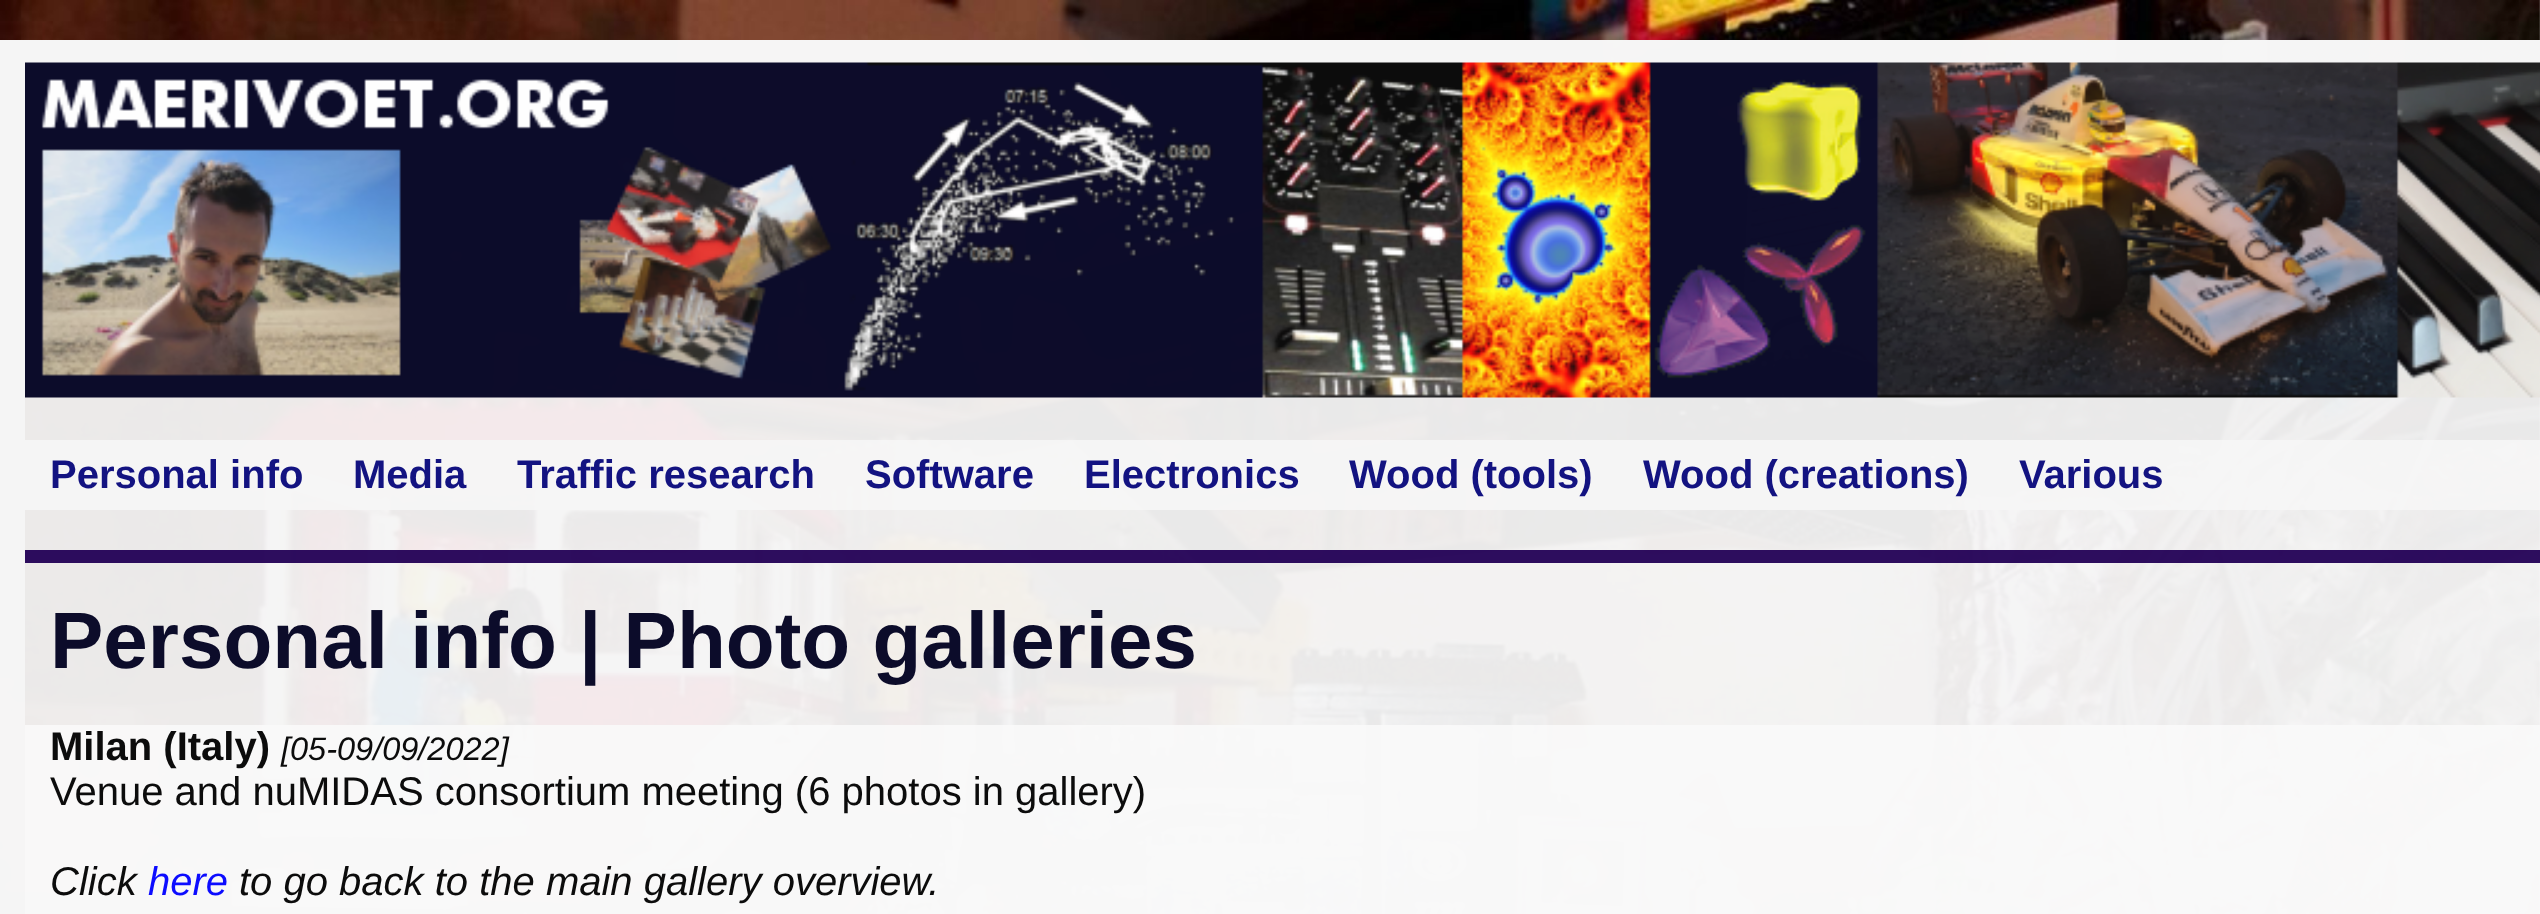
<!DOCTYPE html>
<meta charset="utf-8">
<style>body { margin: 0 } canvas { display: block }</style>
<canvas id="canvas" width="2540" height="914"></canvas>
<img id="img1" src="img_01.png" hidden>
<img id="img2" src="img_02.png" hidden>
<script>
window.onload = function () {
	const canvas = document.getElementById("canvas");
	const ctx = canvas.getContext("2d");
	ctx.miterLimit = 4;
	ctx.fontKerning = "normal";
	function txt(s, x, y) {
		ctx.fillText(s, x, y);
	}
	function fill(x, y, w, h) {
		ctx.fillRect(x, y, w, h);
	}
	function img(id, x, y, w, h) {
		ctx.drawImage(document.getElementById(id), x, y, w, h);
	}

	ctx.fillStyle = "#FFFFFF";
	fill(0, 0, 2540, 914);
	img("img1", 0, 0, 2540, 914);
	ctx.strokeStyle = "rgba(245, 245, 245, 0.95)";
	ctx.lineWidth = 25;
	ctx.strokeRect(12.5, 52.5, 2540, 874);
	img("img2", 25, 62, 2515, 336);
	ctx.fillStyle = "rgba(245, 245, 245, 0.95)";
	fill(25, 440, 2515, 70);
	ctx.fillStyle = "rgba(34, 0, 85, 0.95)";
	fill(25, 550, 2515, 13);
	ctx.fillStyle = "rgba(249, 249, 249, 0.95)";
	fill(25, 725, 2515, 189);
	ctx.font = "bold 40px Liberation Sans";
	ctx.fillStyle = "#131381";
	txt("Personal info", 50, 488);
	txt("Media", 353, 488);
	txt("Traffic research", 517, 488);
	txt("Software", 865, 488);
	txt("Electronics", 1084, 488);
	txt("Wood (tools)", 1349, 488);
	txt("Wood (creations)", 1643, 488);
	txt("Various", 2019, 488);
	ctx.font = "bold 80px Liberation Sans";
	ctx.fillStyle = "#0C0C2A";
	txt("Personal info | Photo galleries", 50, 668);
	ctx.font = "bold 40px Liberation Sans";
	ctx.fillStyle = "#0C0C0C";
	txt("Milan (Italy)", 50, 760);
	ctx.font = "italic 32.5px Liberation Sans";
	txt("[05-09/09/2022]", 281, 760);
	ctx.font = "40px Liberation Sans";
	txt("Venue and nuMIDAS consortium meeting (6 photos in gallery)", 50, 805);
	ctx.font = "italic 40px Liberation Sans";
	txt("Click", 50, 895);
	ctx.fillStyle = "#0C0CFF";
	txt("here", 148, 895);
	ctx.fillStyle = "#0C0C0C";
	txt("to go back to the main gallery overview.", 239, 895);
};
</script>
